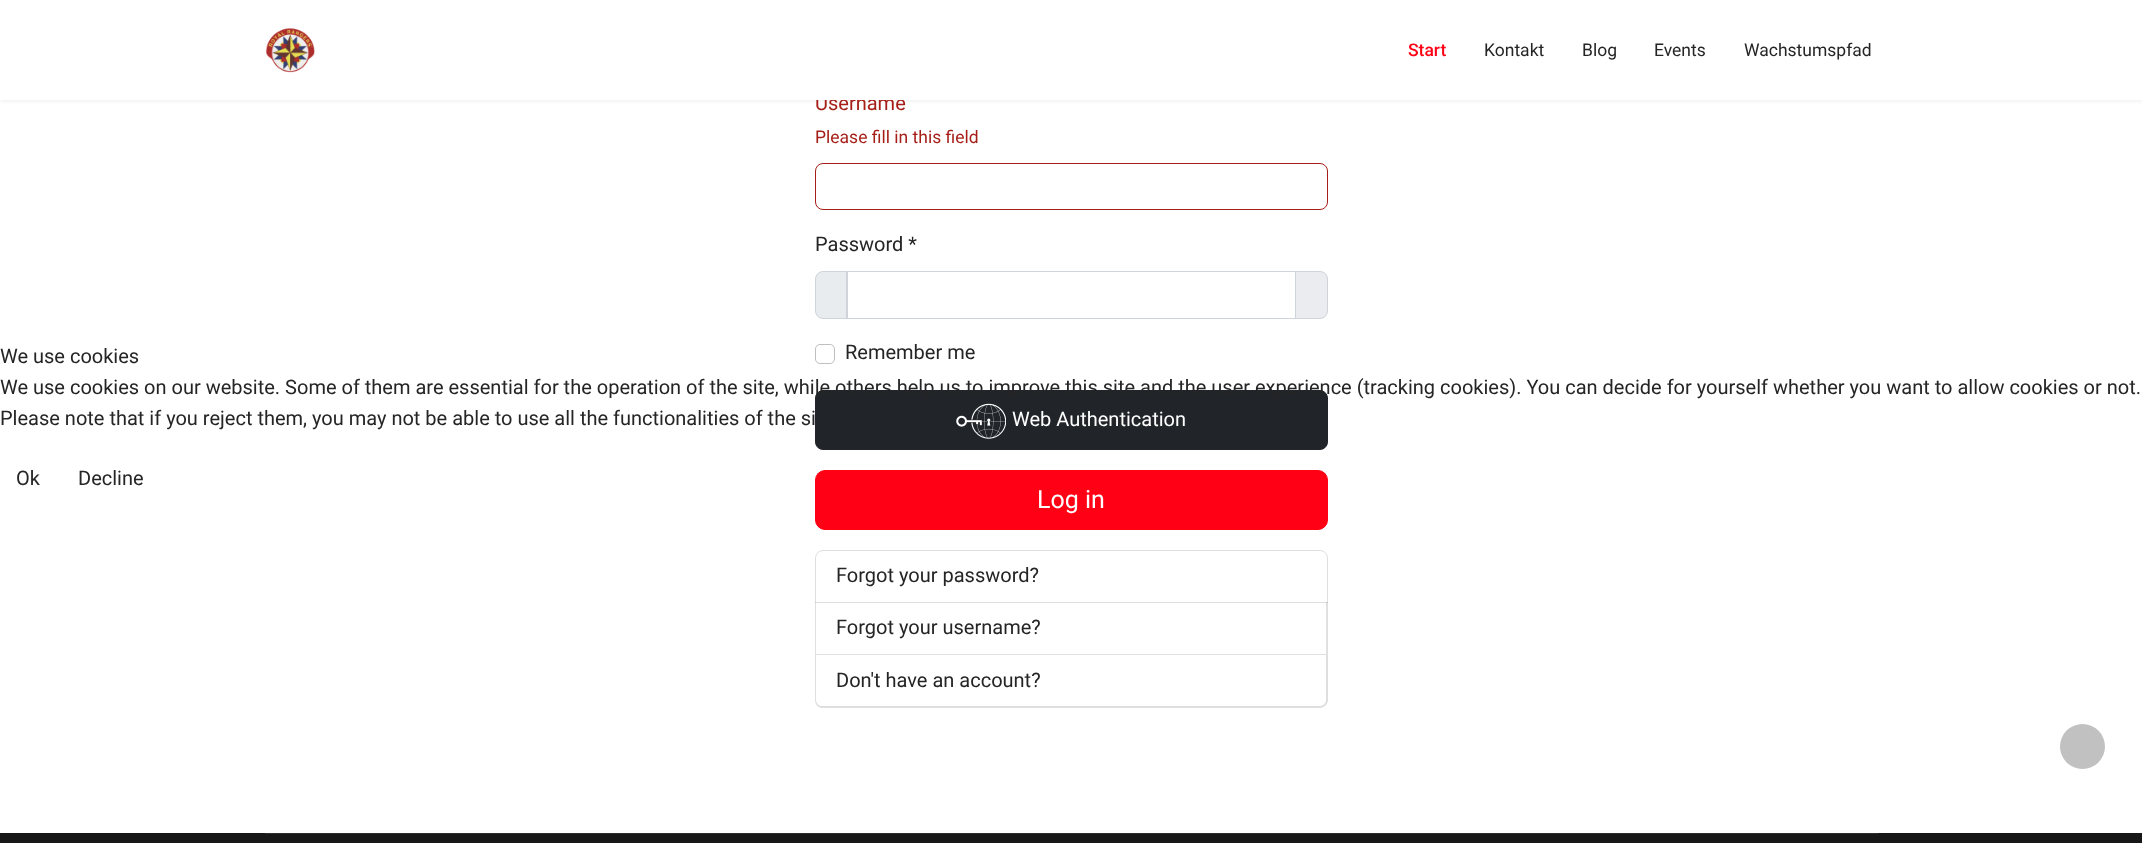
<!DOCTYPE html>
<meta charset="utf-8">
<style>body { margin: 0 } canvas { display: block }</style>
<canvas id="canvas" width="2142" height="843"></canvas>
<img id="img1" src="img_02.png" hidden>
<img id="img2" src="img_01.png" hidden>
<script>
window.onload = function () {
	const canvas = document.getElementById("canvas");
	const ctx = canvas.getContext("2d");
	ctx.miterLimit = 4;
	ctx.fontKerning = "normal";
	function txt(s, x, y) {
		ctx.fillText(s, x, y);
	}
	function fill(x, y, w, h) {
		ctx.fillRect(x, y, w, h);
	}
	function img(id, x, y, w, h) {
		ctx.drawImage(document.getElementById(id), x, y, w, h);
	}

	ctx.fillStyle = "#FFFFFF";
	fill(0, 0, 2142, 843);
	ctx.fillStyle = "rgba(0, 0, 0, 0.1)";
	ctx.filter = "blur(2.5px)";
	ctx.beginPath();
	ctx.rect(0, 0, 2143, 100);
	ctx.fill();
	ctx.filter = "none";
	ctx.beginPath();
	ctx.roundRect(815.5, 163.5, 512, 46, 7.5);
	ctx.strokeStyle = "#A51F18";
	ctx.stroke();
	ctx.fillStyle = "#E9ECEF";
	ctx.beginPath();
	ctx.roundRect(815.5, 271.5, 32, 47, [7.5, 0, 0, 7.5]);
	ctx.fill();
	ctx.strokeStyle = "#CED4DA";
	ctx.stroke();
	ctx.strokeRect(846.5, 271.5, 449, 47);
	ctx.fillStyle = "#EAECEF";
	ctx.beginPath();
	ctx.roundRect(1295.5, 271.5, 32, 47, [0, 7.5, 7.5, 0]);
	ctx.fill();
	ctx.stroke();
	ctx.beginPath();
	ctx.roundRect(815.5, 344.5, 19, 19, 4.5);
	ctx.strokeStyle = "#BFBFBF";
	ctx.stroke();
	ctx.fillStyle = "#212529";
	ctx.beginPath();
	ctx.roundRect(815.5, 390.5, 512, 59, 7.5);
	ctx.fill();
	ctx.strokeStyle = "#212529";
	ctx.stroke();
	img("img1", 956, 403, 50, 36);
	ctx.fillStyle = "#FF0015";
	ctx.beginPath();
	ctx.roundRect(815.5, 470.5, 512, 59, 9.5);
	ctx.fill();
	ctx.strokeStyle = "#FF0015";
	ctx.stroke();
	ctx.beginPath();
	ctx.roundRect(815.5, 550.5, 512, 52, [7.5, 7.5, 0, 0]);
	ctx.strokeStyle = "#DFDFDF";
	ctx.stroke();
	ctx.fillStyle = "rgba(0, 0, 0, 0.12)";
	ctx.beginPath();
	ctx.moveTo(1328, 602);
	ctx.lineTo(1328, 655);
	ctx.lineTo(1326, 654);
	ctx.lineTo(1326, 602);
	ctx.closePath();
	ctx.fill();
	ctx.beginPath();
	ctx.moveTo(1328, 655);
	ctx.lineTo(815, 655);
	ctx.lineTo(816, 654);
	ctx.lineTo(1326, 654);
	ctx.closePath();
	ctx.fill();
	ctx.beginPath();
	ctx.moveTo(815, 655);
	ctx.lineTo(815, 602);
	ctx.lineTo(816, 602);
	ctx.lineTo(816, 654);
	ctx.closePath();
	ctx.fill();
	ctx.fillStyle = "#DFDFDF";
	ctx.beginPath();
	ctx.moveTo(815, 655);
	ctx.lineTo(1328, 655);
	ctx.lineTo(1328, 700);
	ctx.bezierCurveTo(1328, 704, 1324, 708, 1320, 708);
	ctx.lineTo(822, 708);
	ctx.bezierCurveTo(818, 708, 815, 704, 815, 700);
	ctx.closePath();
	ctx.moveTo(816, 655);
	ctx.lineTo(1326, 655);
	ctx.lineTo(1326, 700);
	ctx.bezierCurveTo(1326, 703, 1323, 706, 1320, 706);
	ctx.lineTo(822, 706);
	ctx.bezierCurveTo(819, 706, 816, 703, 816, 700);
	ctx.closePath();
	ctx.fill("evenodd");
	ctx.fillStyle = "#171717";
	fill(0, 833, 2142, 10);
	ctx.fillStyle = "#2E2E2E";
	fill(265, 833, 1613, 1);
	ctx.fillStyle = "#C1C1C1";
	ctx.beginPath();
	ctx.arc(2082.5, 746.5, 22.5, 0, Math.PI * 2);
	ctx.fill();
	ctx.font = "20px Roboto";
	ctx.fillStyle = "#A51F18";
	txt("Username", 815, 110);
	ctx.fillStyle = "#FFFFFF";
	fill(0, 0, 2142, 100);
	ctx.font = "17.5px Roboto";
	ctx.fillStyle = "#252525";
	txt("Wachstumspfad", 1744, 56);
	txt("Events", 1654, 56);
	txt("Blog", 1582, 56);
	txt("Kontakt", 1484, 56);
	ctx.font = "500 17.5px Roboto";
	ctx.fillStyle = "#FF0015";
	txt("Start", 1408, 56);
	img("img2", 265, 28, 50, 45);
	ctx.font = "17.5px Roboto";
	ctx.fillStyle = "#A51F18";
	txt("Please fill in this field", 815, 143);
	ctx.font = "20px Roboto";
	ctx.fillStyle = "#252525";
	txt("Password *", 815, 251);
	txt("Remember me", 845, 359);
	ctx.fillStyle = "#FFFFFF";
	txt("Web Authentication", 1012, 426);
	ctx.font = "25px Roboto";
	txt("Log in", 1037, 508);
	ctx.font = "20px Roboto";
	ctx.fillStyle = "#252525";
	txt("Forgot your password?", 836, 582);
	txt("Forgot your username?", 836, 634);
	txt("Don't have an account?", 836, 687);
	txt("We use cookies", 0, 363);
	txt("We use cookies on our website. Some of them are essential for the operation of the site, while others help us to improve this site and the user experience (tracking cookies). You can decide for yourself whether you want to allow cookies or not.", 0, 394);
	txt("Please note that if you reject them, you may not be able to use all the functionalities of the si", 0, 425);
	txt("Ok", 16, 485);
	txt("Decline", 78, 485);
};
</script>
